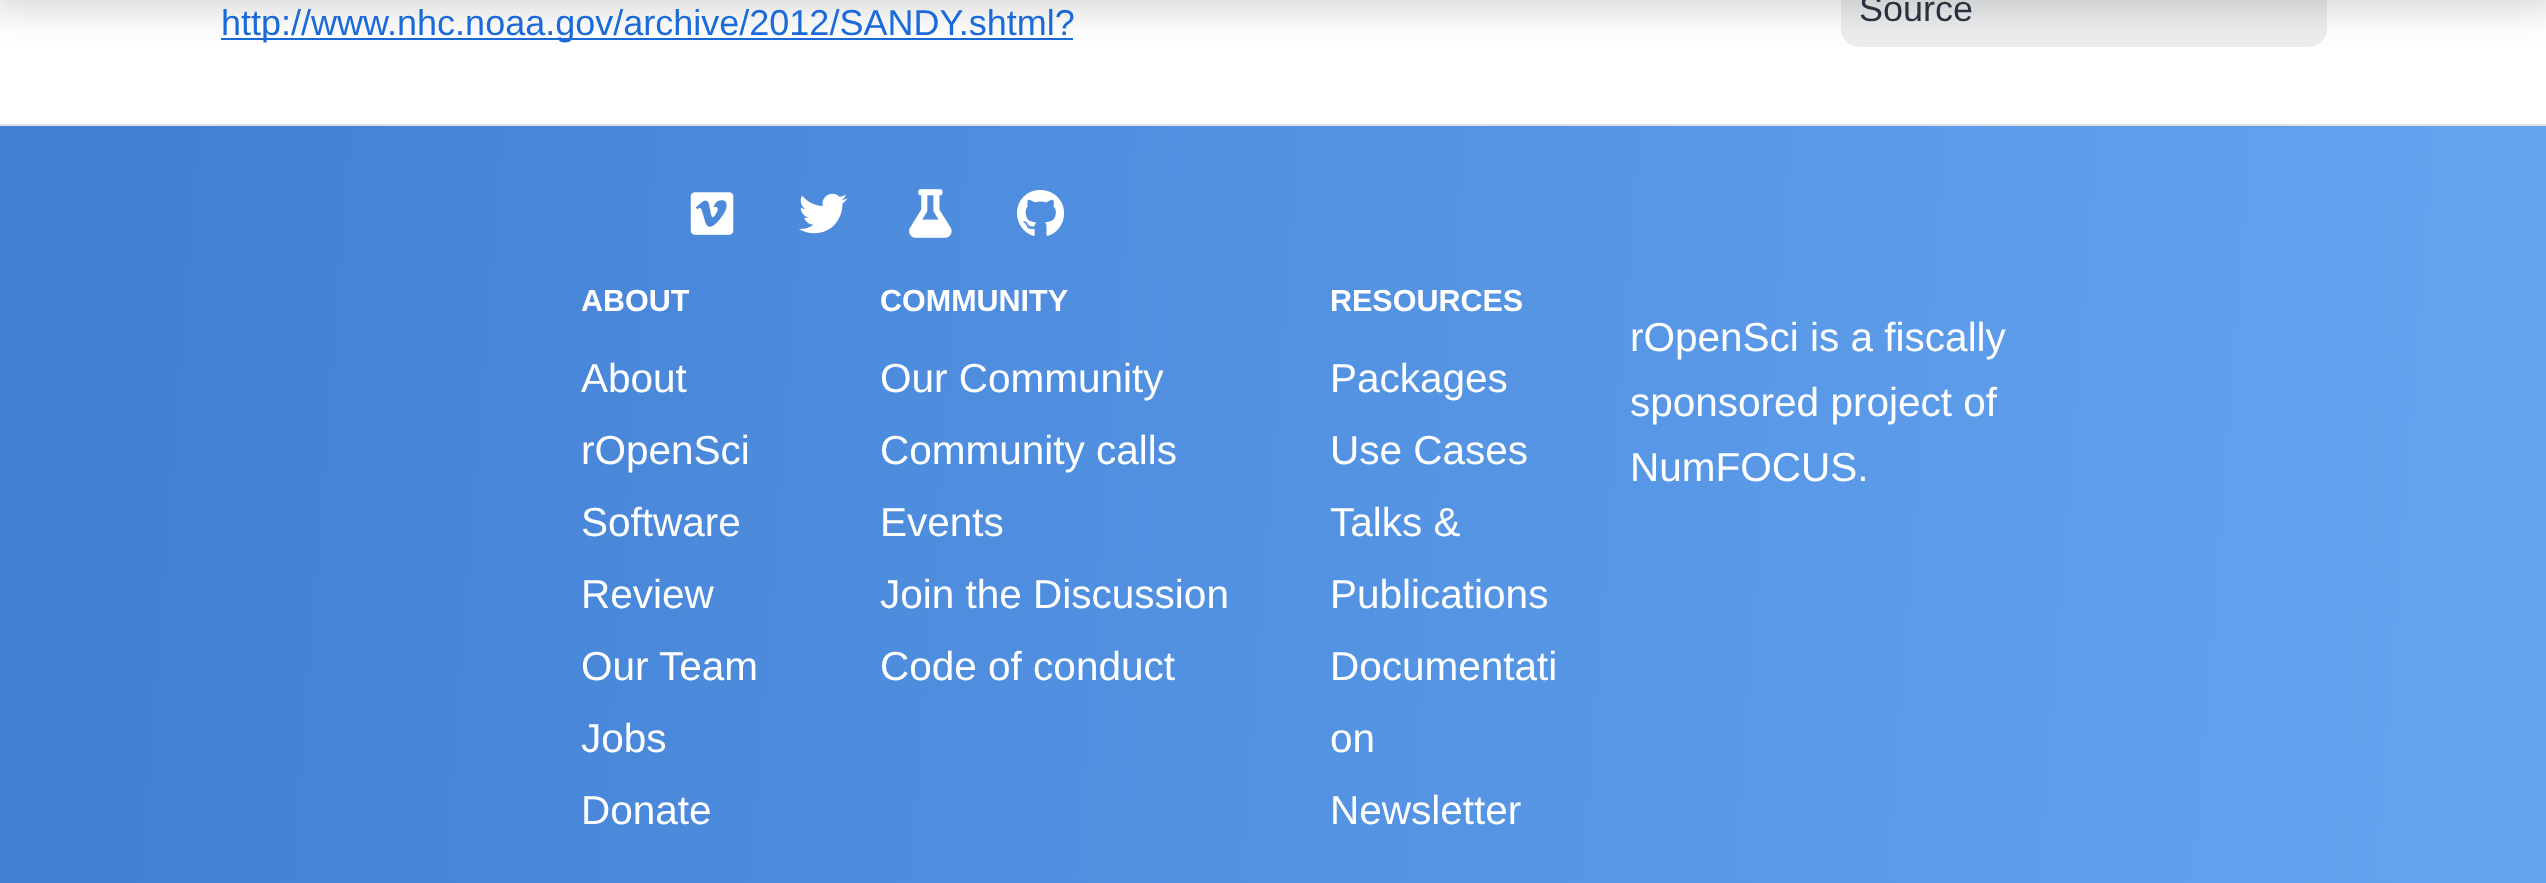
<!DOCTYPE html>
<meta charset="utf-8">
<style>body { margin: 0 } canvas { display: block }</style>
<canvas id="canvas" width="2546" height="883"></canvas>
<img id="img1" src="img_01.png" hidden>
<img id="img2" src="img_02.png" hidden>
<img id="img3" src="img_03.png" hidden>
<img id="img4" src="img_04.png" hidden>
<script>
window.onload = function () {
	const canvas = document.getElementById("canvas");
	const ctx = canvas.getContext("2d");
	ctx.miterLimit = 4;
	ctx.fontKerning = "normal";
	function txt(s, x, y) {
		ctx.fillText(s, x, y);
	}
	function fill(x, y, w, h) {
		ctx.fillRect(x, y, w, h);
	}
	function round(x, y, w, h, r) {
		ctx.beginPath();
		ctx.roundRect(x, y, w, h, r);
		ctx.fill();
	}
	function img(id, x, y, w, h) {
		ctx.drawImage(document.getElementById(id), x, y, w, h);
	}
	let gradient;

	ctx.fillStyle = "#FFFFFF";
	fill(0, 0, 2546, 883);
	ctx.fillStyle = "#1B6ADA";
	fill(221, 38, 852, 2);
	ctx.fillStyle = "#ECEDEE";
	round(1841, -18, 486, 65, 18);
	ctx.fillStyle = "rgba(0, 0, 0, 0.15)";
	ctx.filter = "blur(17px)";
	ctx.beginPath();
	ctx.rect(-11, -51, 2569, 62);
	ctx.fill();
	ctx.filter = "none";
	gradient = ctx.createLinearGradient(-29, 502, 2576, 704);
	gradient.addColorStop(0.02, "#427FD4");
	gradient.addColorStop(0.98, "#64A4EF");
	ctx.fillStyle = gradient;
	fill(0, 126, 2546, 757);
	ctx.fillStyle = "#DEE2E6";
	fill(0, 124, 2546, 2);
	img("img1", 690, 192, 44, 43);
	img("img2", 799, 193, 49, 41);
	img("img3", 909, 189, 43, 49);
	img("img4", 1017, 190, 48, 46);
	ctx.font = "36px Liberation Sans";
	ctx.fillStyle = "#1B6ADA";
	txt("http://www.nhc.noaa.gov/archive/2012/SANDY.shtml?", 221, 35);
	ctx.fillStyle = "#283140";
	txt("Source", 1859, 21);
	ctx.font = "bold 30.5px Liberation Sans";
	ctx.fillStyle = "#FFFFFF";
	txt("ABOUT", 581, 311);
	ctx.font = "40.5px Liberation Sans";
	txt("About", 581, 392);
	txt("rOpenSci", 581, 464);
	txt("Software", 581, 536);
	txt("Review", 581, 608);
	txt("Our Team", 581, 680);
	txt("Jobs", 581, 752);
	txt("Donate", 581, 824);
	ctx.font = "bold 30.5px Liberation Sans";
	txt("COMMUNITY", 880, 311);
	ctx.font = "40.5px Liberation Sans";
	txt("Our Community", 880, 392);
	txt("Community calls", 880, 464);
	txt("Events", 880, 536);
	txt("Join the Discussion", 880, 608);
	txt("Code of conduct", 880, 680);
	ctx.font = "bold 30.5px Liberation Sans";
	txt("RESOURCES", 1330, 311);
	ctx.font = "40.5px Liberation Sans";
	txt("Packages", 1330, 392);
	txt("Use Cases", 1330, 464);
	txt("Talks &", 1330, 536);
	txt("Publications", 1330, 608);
	txt("Documentati", 1330, 680);
	txt("on", 1330, 752);
	txt("Newsletter", 1330, 824);
	txt("rOpenSci is a fiscally", 1630, 351);
	txt("sponsored project of", 1630, 416);
	txt("NumFOCUS.", 1630, 481);
};
</script>
